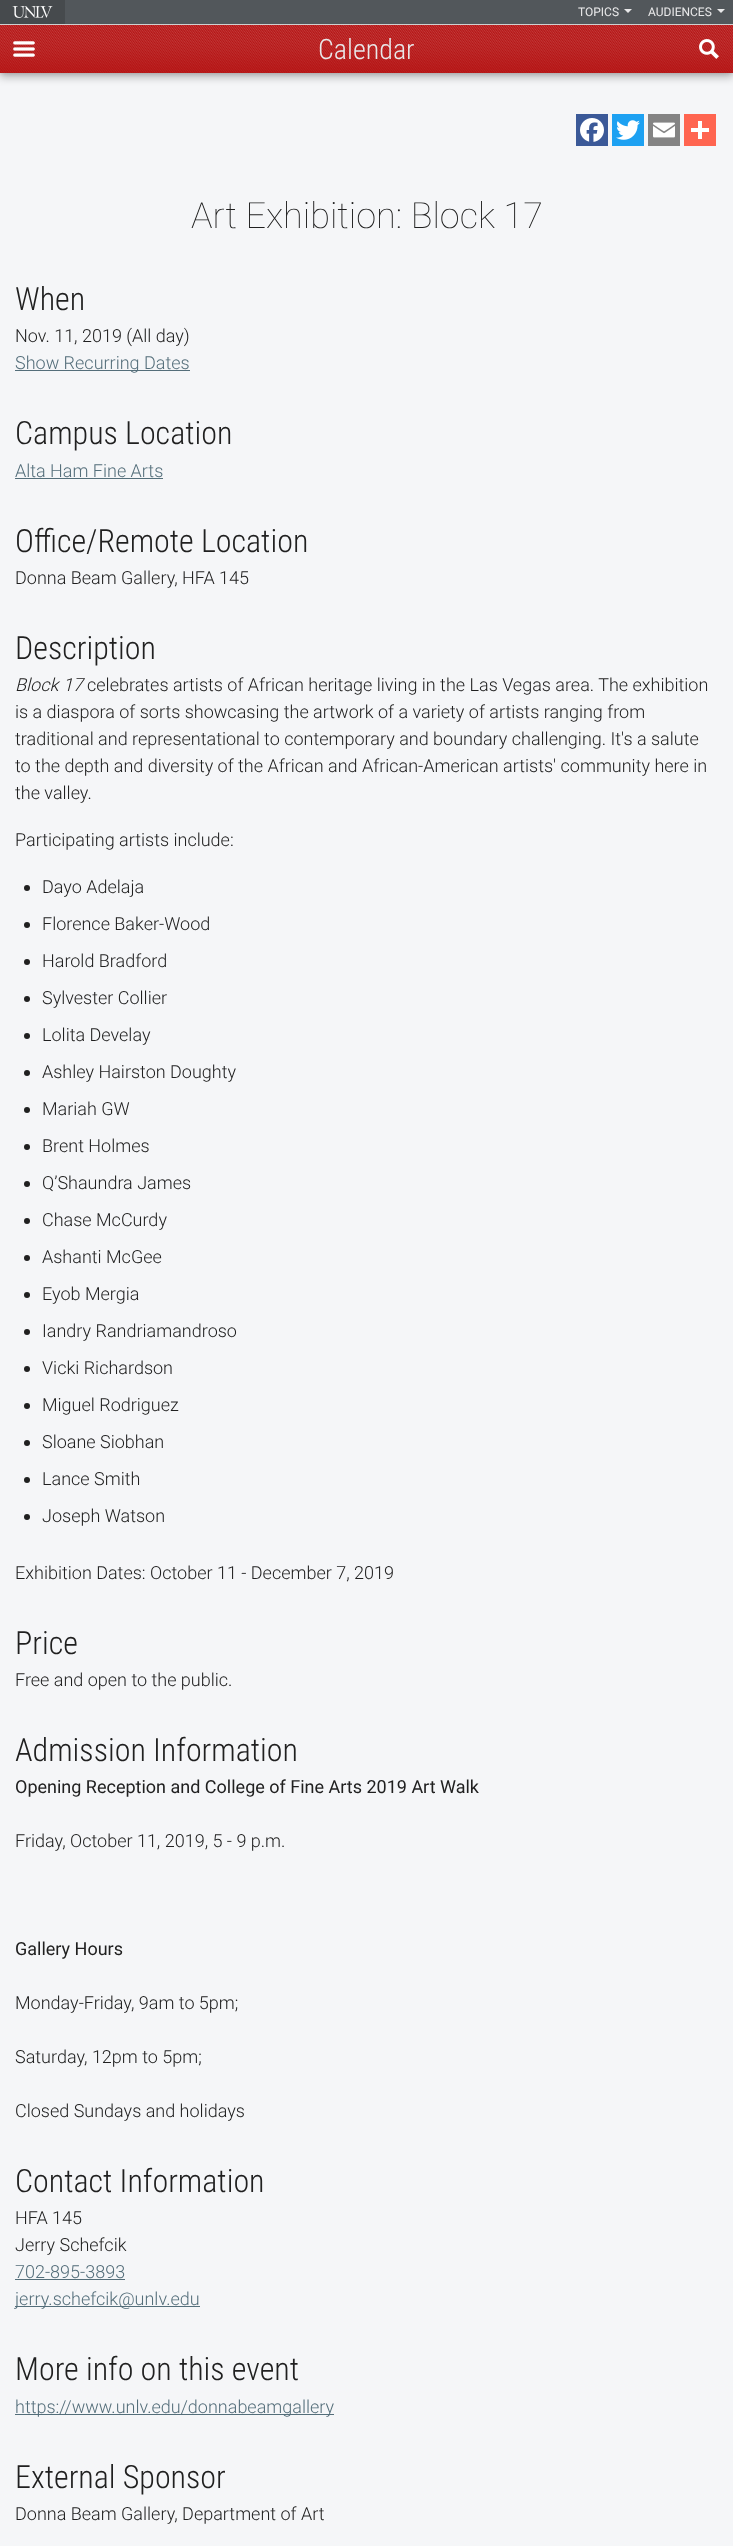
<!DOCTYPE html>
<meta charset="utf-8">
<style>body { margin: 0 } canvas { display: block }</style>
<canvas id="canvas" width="733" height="2546"></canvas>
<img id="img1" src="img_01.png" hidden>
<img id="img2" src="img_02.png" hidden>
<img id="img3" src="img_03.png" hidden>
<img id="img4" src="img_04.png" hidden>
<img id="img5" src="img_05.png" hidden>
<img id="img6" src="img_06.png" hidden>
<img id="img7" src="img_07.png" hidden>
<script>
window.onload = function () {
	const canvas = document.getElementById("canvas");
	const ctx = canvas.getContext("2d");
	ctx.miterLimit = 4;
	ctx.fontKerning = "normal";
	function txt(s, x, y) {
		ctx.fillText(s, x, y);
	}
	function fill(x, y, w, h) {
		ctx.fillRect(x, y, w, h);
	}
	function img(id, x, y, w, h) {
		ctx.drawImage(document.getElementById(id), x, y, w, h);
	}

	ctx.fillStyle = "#F5F6F8";
	fill(0, 0, 733, 2546);
	ctx.fillStyle = "rgba(0, 0, 0, 0.28)";
	ctx.filter = "blur(4px)";
	ctx.beginPath();
	ctx.rect(0, 4, 733, 73);
	ctx.fill();
	ctx.filter = "none";
	ctx.fillStyle = "rgba(0, 0, 0, 0.14)";
	ctx.filter = "blur(2px)";
	ctx.beginPath();
	ctx.rect(0, 0, 733, 73);
	ctx.fill();
	ctx.filter = "none";
	ctx.fillStyle = "#52575B";
	fill(65, 0, 668, 24);
	ctx.fillStyle = "#CFD0D0";
	fill(0, 24, 733, 1);
	ctx.fillStyle = "#464A4D";
	fill(0, 0, 65, 24);
	img("img1", 12, 6, 41, 12);
	ctx.fillStyle = "#E9E9EA";
	ctx.beginPath();
	ctx.moveTo(624, 9);
	ctx.lineTo(632, 9);
	ctx.lineTo(628, 13);
	ctx.closePath();
	ctx.fill();
	ctx.beginPath();
	ctx.moveTo(717, 9);
	ctx.lineTo(725, 9);
	ctx.lineTo(721, 13);
	ctx.closePath();
	ctx.fill();
	ctx.fillStyle = "#B61616";
	fill(0, 25, 733, 48);
	img("img2", 0, 25, 733, 48);
	img("img3", 13, 41, 22, 16);
	img("img4", 699, 39, 20, 20);
	ctx.fillStyle = "#3B5998";
	fill(576, 114, 32, 32);
	img("img5", 580, 118, 24, 24);
	ctx.fillStyle = "#1DA1F2";
	fill(612, 114, 32, 32);
	img("img6", 616, 120, 24, 20);
	ctx.fillStyle = "#848484";
	fill(648, 114, 32, 32);
	img("img7", 653, 122, 22, 16);
	ctx.fillStyle = "#FF6550";
	fill(684, 114, 32, 32);
	ctx.fillStyle = "#FFFFFF";
	fill(698, 121, 4, 18);
	fill(691, 128, 18, 4);
	ctx.fillStyle = "#546E7A";
	fill(15, 370, 175, 1);
	fill(15, 478, 148, 1);
	ctx.fillStyle = "#202020";
	ctx.beginPath();
	ctx.arc(27, 888, 3, 0, Math.PI * 2);
	ctx.fill();
	ctx.beginPath();
	ctx.arc(27, 925, 3, 0, Math.PI * 2);
	ctx.fill();
	ctx.beginPath();
	ctx.arc(27, 962, 3, 0, Math.PI * 2);
	ctx.fill();
	ctx.beginPath();
	ctx.arc(27, 999, 3, 0, Math.PI * 2);
	ctx.fill();
	ctx.beginPath();
	ctx.arc(27, 1036, 3, 0, Math.PI * 2);
	ctx.fill();
	ctx.beginPath();
	ctx.arc(27, 1073, 3, 0, Math.PI * 2);
	ctx.fill();
	ctx.beginPath();
	ctx.arc(27, 1110, 3, 0, Math.PI * 2);
	ctx.fill();
	ctx.beginPath();
	ctx.arc(27, 1147, 3, 0, Math.PI * 2);
	ctx.fill();
	ctx.beginPath();
	ctx.arc(27, 1184, 3, 0, Math.PI * 2);
	ctx.fill();
	ctx.beginPath();
	ctx.arc(27, 1221, 3, 0, Math.PI * 2);
	ctx.fill();
	ctx.beginPath();
	ctx.arc(27, 1258, 3, 0, Math.PI * 2);
	ctx.fill();
	ctx.beginPath();
	ctx.arc(27, 1295, 3, 0, Math.PI * 2);
	ctx.fill();
	ctx.beginPath();
	ctx.arc(27, 1332, 3, 0, Math.PI * 2);
	ctx.fill();
	ctx.beginPath();
	ctx.arc(27, 1369, 3, 0, Math.PI * 2);
	ctx.fill();
	ctx.beginPath();
	ctx.arc(27, 1406, 3, 0, Math.PI * 2);
	ctx.fill();
	ctx.beginPath();
	ctx.arc(27, 1443, 3, 0, Math.PI * 2);
	ctx.fill();
	ctx.beginPath();
	ctx.arc(27, 1480, 3, 0, Math.PI * 2);
	ctx.fill();
	ctx.beginPath();
	ctx.arc(27, 1517, 3, 0, Math.PI * 2);
	ctx.fill();
	ctx.fillStyle = "#546E7A";
	fill(15, 2279, 110, 1);
	fill(15, 2306, 185, 1);
	fill(15, 2414, 319, 1);
	ctx.font = "12px Roboto";
	ctx.fillStyle = "#E9E9EA";
	txt("TOPICS", 578, 16);
	txt("AUDIENCES", 648, 16);
	ctx.font = "300 28px Roboto Condensed";
	txt("Calendar", 318, 59);
	ctx.font = "100 36px Roboto";
	ctx.fillStyle = "#202020";
	txt("Art Exhibition: Block 17", 191, 228);
	ctx.font = "300 32px Roboto Condensed";
	txt("When", 15, 310);
	ctx.font = "300 18px Roboto";
	txt("Nov. 11, 2019 (All day)", 15, 342);
	ctx.fillStyle = "#546E7A";
	txt("Show Recurring Dates", 15, 369);
	ctx.font = "300 32px Roboto Condensed";
	ctx.fillStyle = "#202020";
	txt("Campus Location", 15, 444);
	ctx.font = "300 18px Roboto";
	ctx.fillStyle = "#546E7A";
	txt("Alta Ham Fine Arts", 15, 477);
	ctx.font = "300 32px Roboto Condensed";
	ctx.fillStyle = "#202020";
	txt("Office/Remote Location", 15, 552);
	ctx.font = "300 18px Roboto";
	txt("Donna Beam Gallery, HFA 145", 15, 584);
	ctx.font = "300 32px Roboto Condensed";
	txt("Description", 15, 659);
	ctx.font = "italic 300 18px Roboto";
	txt("Block 17", 15, 691);
	ctx.font = "300 18px Roboto";
	txt("celebrates artists of African heritage living in the Las Vegas area. The exhibition", 87, 691);
	txt("is a diaspora of sorts showcasing the artwork of a variety of artists ranging from", 15, 718);
	txt("traditional and representational to contemporary and boundary challenging. It's a salute", 15, 745);
	txt("to the depth and diversity of the African and African-American artists' community here in", 15, 772);
	txt("the valley.", 15, 799);
	txt("Participating artists include:", 15, 846);
	txt("Dayo Adelaja", 42, 893);
	txt("Florence Baker-Wood", 42, 930);
	txt("Harold Bradford", 42, 967);
	txt("Sylvester Collier", 42, 1004);
	txt("Lolita Develay", 42, 1041);
	txt("Ashley Hairston Doughty", 42, 1078);
	txt("Mariah GW", 42, 1115);
	txt("Brent Holmes", 42, 1152);
	txt("Q’Shaundra James", 42, 1189);
	txt("Chase McCurdy", 42, 1226);
	txt("Ashanti McGee", 42, 1263);
	txt("Eyob Mergia", 42, 1300);
	txt("Iandry Randriamandroso", 42, 1337);
	txt("Vicki Richardson", 42, 1374);
	txt("Miguel Rodriguez", 42, 1411);
	txt("Sloane Siobhan", 42, 1448);
	txt("Lance Smith", 42, 1485);
	txt("Joseph Watson", 42, 1522);
	txt("Exhibition Dates: October 11 - December 7, 2019", 15, 1579);
	ctx.font = "300 32px Roboto Condensed";
	txt("Price", 15, 1654);
	ctx.font = "300 18px Roboto";
	txt("Free and open to the public.", 15, 1686);
	ctx.font = "300 32px Roboto Condensed";
	txt("Admission Information", 15, 1761);
	ctx.font = "18px Roboto";
	txt("Opening Reception and College of Fine Arts 2019 Art Walk", 15, 1793);
	ctx.font = "300 18px Roboto";
	txt("Friday, October 11, 2019, 5 - 9 p.m.", 15, 1847);
	ctx.font = "18px Roboto";
	txt("Gallery Hours", 15, 1955);
	ctx.font = "300 18px Roboto";
	txt("Monday-Friday, 9am to 5pm;", 15, 2009);
	txt("Saturday, 12pm to 5pm;", 15, 2063);
	txt("Closed Sundays and holidays", 15, 2117);
	ctx.font = "300 32px Roboto Condensed";
	txt("Contact Information", 15, 2192);
	ctx.font = "300 18px Roboto";
	txt("HFA 145", 15, 2224);
	txt("Jerry Schefcik", 15, 2251);
	ctx.fillStyle = "#546E7A";
	txt("702-895-3893", 15, 2278);
	txt("jerry.schefcik@unlv.edu", 15, 2305);
	ctx.font = "300 32px Roboto Condensed";
	ctx.fillStyle = "#202020";
	txt("More info on this event", 15, 2380);
	ctx.font = "300 18px Roboto";
	ctx.fillStyle = "#546E7A";
	txt("https://www.unlv.edu/donnabeamgallery", 15, 2413);
	ctx.font = "300 32px Roboto Condensed";
	ctx.fillStyle = "#202020";
	txt("External Sponsor", 15, 2488);
	ctx.font = "300 18px Roboto";
	txt("Donna Beam Gallery, Department of Art", 15, 2520);
};
</script>
